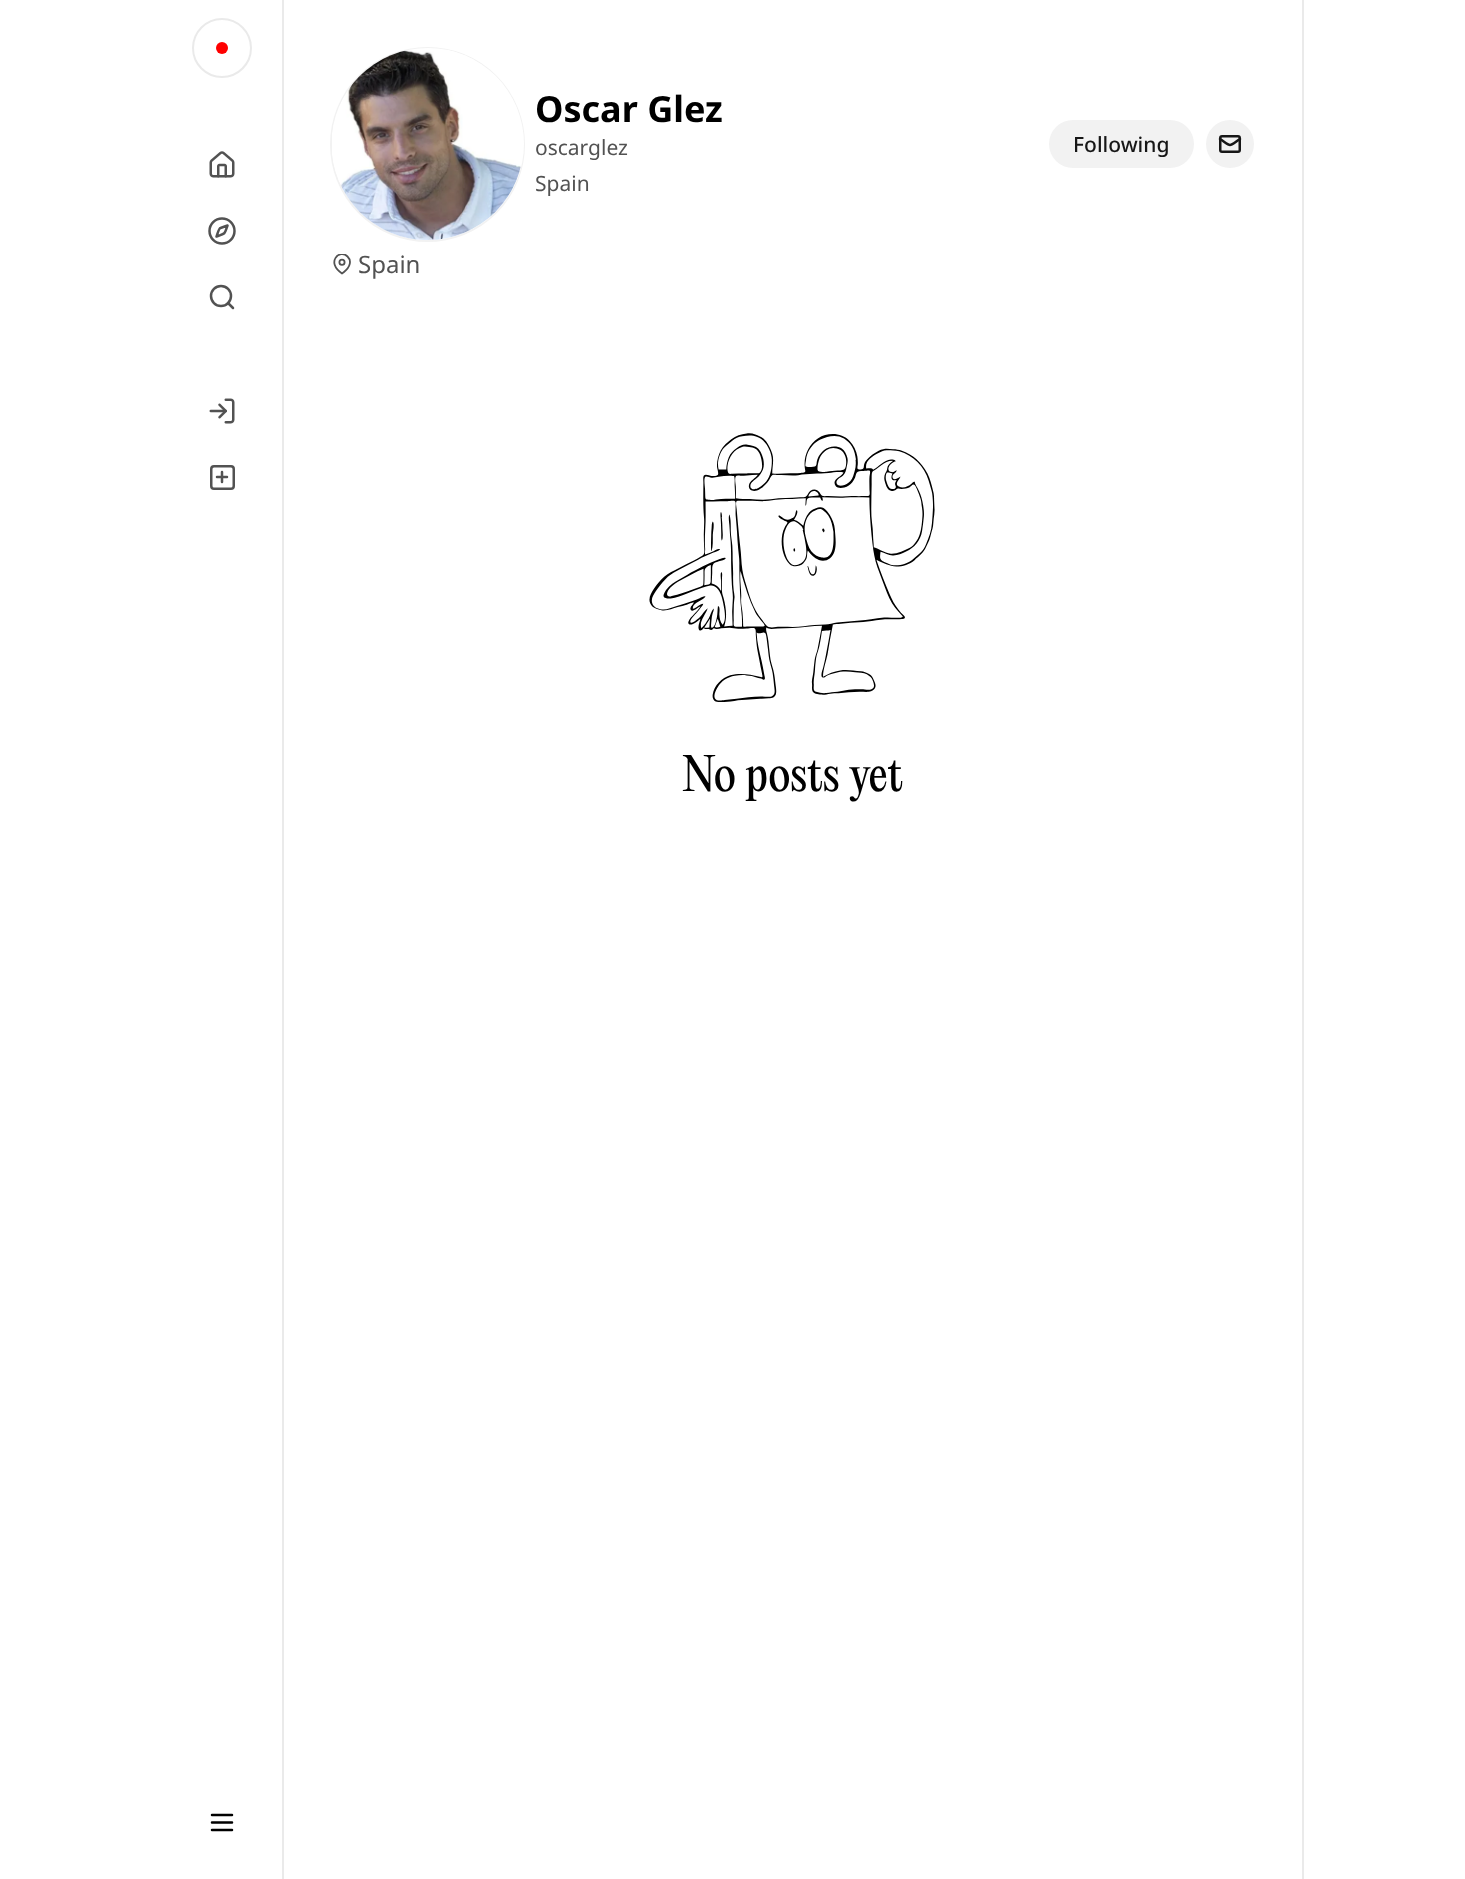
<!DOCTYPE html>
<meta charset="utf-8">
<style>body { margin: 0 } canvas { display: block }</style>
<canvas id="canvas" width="1465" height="1879"></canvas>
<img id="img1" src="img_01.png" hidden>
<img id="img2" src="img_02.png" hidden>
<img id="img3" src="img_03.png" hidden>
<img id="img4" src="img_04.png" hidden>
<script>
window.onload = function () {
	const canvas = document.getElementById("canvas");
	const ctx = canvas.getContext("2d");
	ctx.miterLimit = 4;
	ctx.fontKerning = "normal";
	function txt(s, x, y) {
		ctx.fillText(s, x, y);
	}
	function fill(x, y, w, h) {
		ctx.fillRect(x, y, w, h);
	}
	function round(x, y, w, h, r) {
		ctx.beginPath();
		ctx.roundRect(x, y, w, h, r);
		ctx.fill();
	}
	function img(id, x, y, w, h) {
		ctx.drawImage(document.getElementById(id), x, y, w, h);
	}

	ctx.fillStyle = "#FFFFFF";
	fill(0, 0, 1465, 1879);
	ctx.fillStyle = "#EAEAEA";
	fill(282, 0, 2, 1879);
	ctx.beginPath();
	ctx.arc(222, 48, 29, 0, Math.PI * 2);
	ctx.strokeStyle = "#EAEAEA";
	ctx.lineWidth = 2;
	ctx.stroke();
	ctx.fillStyle = "#FF0000";
	ctx.beginPath();
	ctx.arc(222, 48, 6, 0, Math.PI * 2);
	ctx.fill();
	img("img1", 209, 151, 26, 27);
	ctx.beginPath();
	ctx.moveTo(227.5, 225.5);
	ctx.bezierCurveTo(224, 235, 226, 233, 216.5, 236.5);
	ctx.bezierCurveTo(217.5, 234.5, 218.5, 228.5, 220.5, 228);
	ctx.closePath();
	ctx.strokeStyle = "#525252";
	ctx.lineWidth = 2.5;
	ctx.lineCap = "round";
	ctx.lineJoin = "round";
	ctx.stroke();
	ctx.beginPath();
	ctx.arc(222, 231, 12.5, 0, Math.PI * 2);
	ctx.stroke();
	ctx.beginPath();
	ctx.arc(221, 296, 10, 0, Math.PI * 2);
	ctx.stroke();
	ctx.beginPath();
	ctx.moveTo(233, 308);
	ctx.lineTo(228, 303);
	ctx.stroke();
	img("img2", 209, 398, 26, 26);
	ctx.beginPath();
	ctx.roundRect(211.25, 466.25, 22.5, 22.5, 2.75);
	ctx.lineJoin = "miter";
	ctx.stroke();
	ctx.beginPath();
	ctx.moveTo(217, 477);
	ctx.lineTo(227, 477);
	ctx.moveTo(222, 472);
	ctx.lineTo(222, 482);
	ctx.lineJoin = "round";
	ctx.stroke();
	ctx.beginPath();
	ctx.moveTo(212, 1822.5);
	ctx.lineTo(232, 1822.5);
	ctx.moveTo(212, 1815);
	ctx.lineTo(232, 1815);
	ctx.moveTo(212, 1830);
	ctx.lineTo(232, 1830);
	ctx.strokeStyle = "#000000";
	ctx.stroke();
	ctx.fillStyle = "#EAEAEA";
	fill(1302, 0, 2, 1879);
	ctx.beginPath();
	ctx.arc(427.5, 144.5, 96.5, 0, Math.PI * 2);
	ctx.strokeStyle = "#F2F2F2";
	ctx.lineWidth = 2;
	ctx.stroke();
	ctx.fillStyle = "#FFFFFF";
	ctx.beginPath();
	ctx.arc(428, 144, 96, 0, Math.PI * 2);
	ctx.fill();
	img("img3", 332, 50, 189, 190);
	ctx.fillStyle = "#F2F2F2";
	round(1049, 120, 145, 48, 24);
	ctx.beginPath();
	ctx.arc(1230, 144, 24, 0, Math.PI * 2);
	ctx.fill();
	ctx.beginPath();
	ctx.roundRect(1220.25, 136.25, 19.5, 15.5, 1.75);
	ctx.strokeStyle = "#171717";
	ctx.lineWidth = 2.5;
	ctx.lineJoin = "miter";
	ctx.stroke();
	ctx.beginPath();
	ctx.moveTo(1240, 139);
	ctx.bezierCurveTo(1228, 147, 1232, 147, 1220, 139);
	ctx.lineJoin = "round";
	ctx.stroke();
	ctx.save();
	ctx.beginPath();
	ctx.rect(332, 254, 21, 21);
	ctx.clip();
	ctx.beginPath();
	ctx.moveTo(350, 262);
	ctx.bezierCurveTo(350, 268.5, 342, 273.5, 342, 273.5);
	ctx.bezierCurveTo(325.5, 262.5, 339.5, 248.5, 347.5, 256.5);
	ctx.bezierCurveTo(349, 258, 350, 260, 350, 262);
	ctx.closePath();
	ctx.strokeStyle = "#525252";
	ctx.lineWidth = 1.8;
	ctx.stroke();
	ctx.restore();
	ctx.beginPath();
	ctx.arc(342, 262.2, 2.6, 0, Math.PI * 2);
	ctx.strokeStyle = "#525252";
	ctx.lineWidth = 1.8;
	ctx.stroke();
	img("img4", 649, 433, 286, 269);
	ctx.font = "bold 36px Noto Sans";
	ctx.fillStyle = "#000000";
	txt("Oscar Glez", 535, 122);
	ctx.font = "21px Noto Sans";
	ctx.fillStyle = "#525252";
	txt("oscarglez", 535, 155);
	txt("Spain", 535, 191);
	ctx.font = "500 21px Noto Sans";
	ctx.fillStyle = "#171717";
	txt("Following", 1073, 152);
	ctx.font = "24px Noto Sans";
	ctx.fillStyle = "#525252";
	txt("Spain", 358, 273);
	ctx.font = "45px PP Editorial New";
	ctx.fillStyle = "#000000";
	txt("No posts yet", 682, 791);
};
</script>
